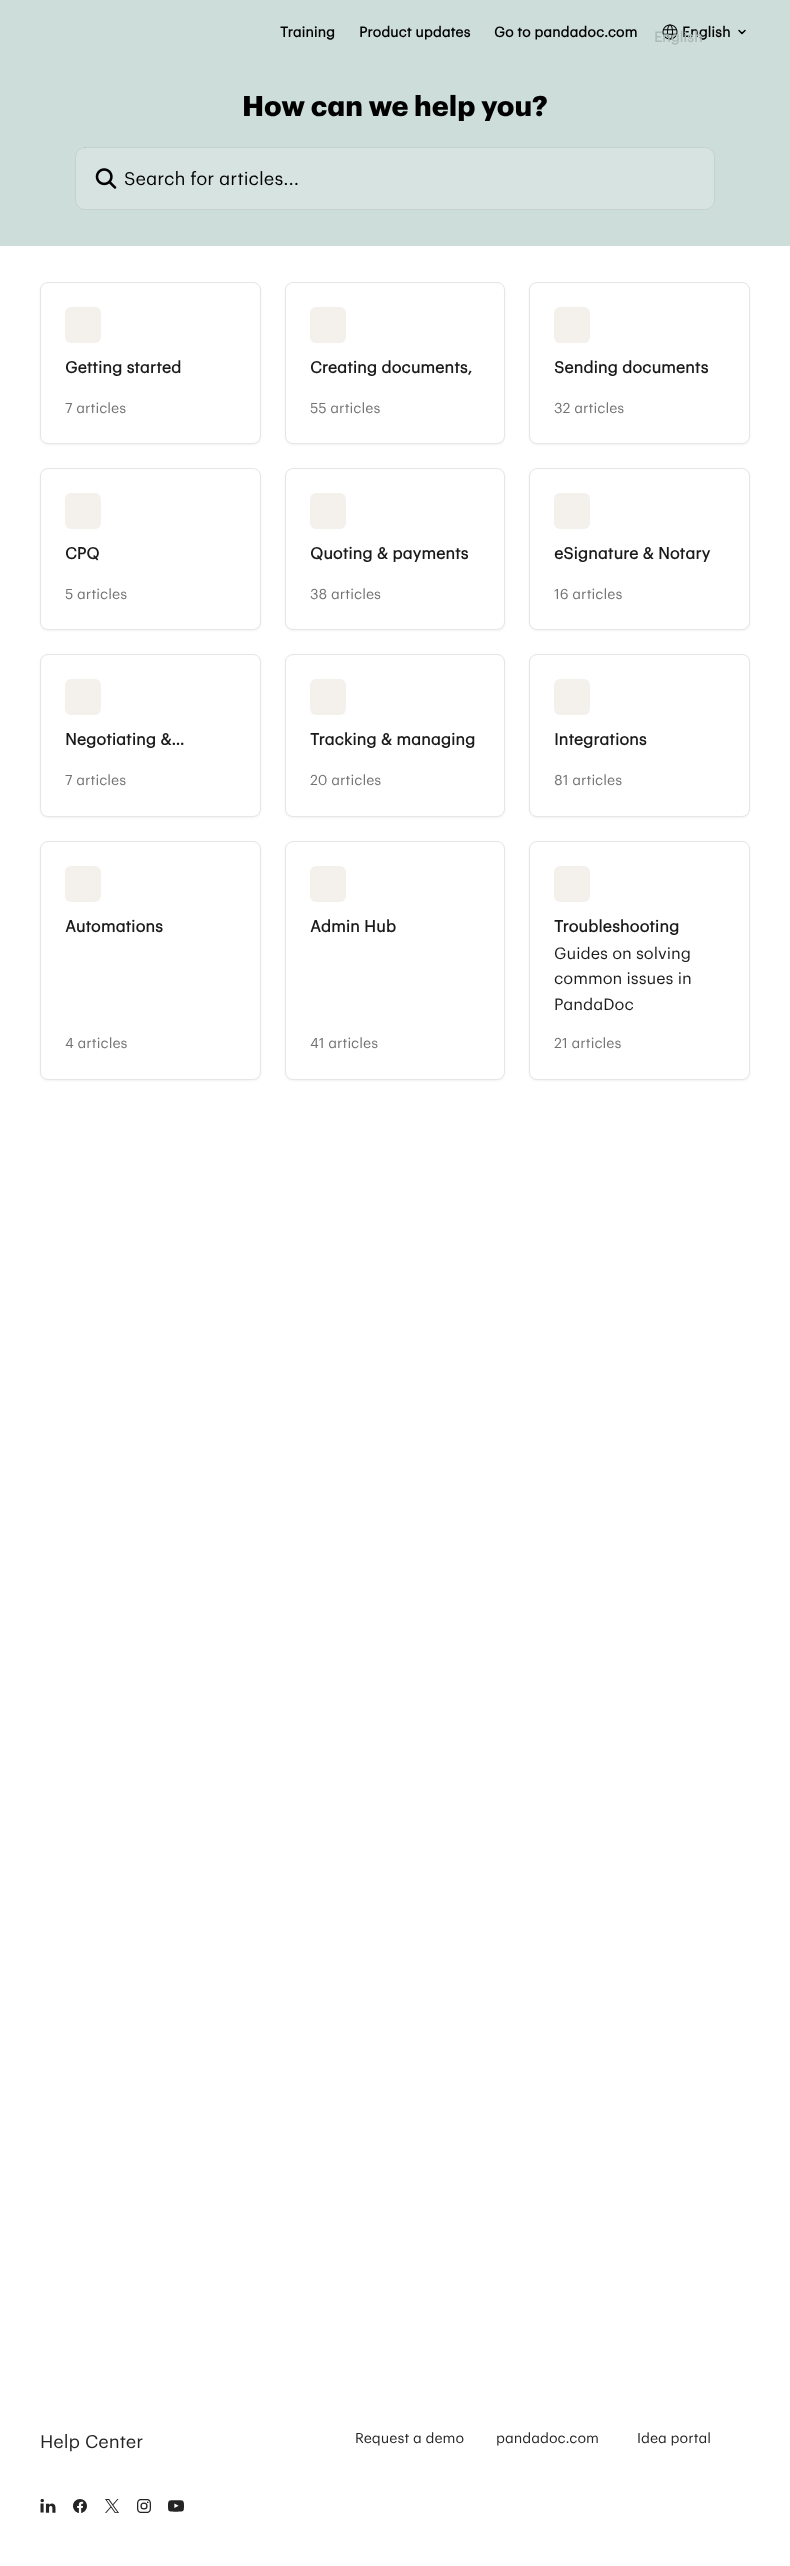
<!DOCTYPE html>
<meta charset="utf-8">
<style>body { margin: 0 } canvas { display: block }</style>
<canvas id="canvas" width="790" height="2566"></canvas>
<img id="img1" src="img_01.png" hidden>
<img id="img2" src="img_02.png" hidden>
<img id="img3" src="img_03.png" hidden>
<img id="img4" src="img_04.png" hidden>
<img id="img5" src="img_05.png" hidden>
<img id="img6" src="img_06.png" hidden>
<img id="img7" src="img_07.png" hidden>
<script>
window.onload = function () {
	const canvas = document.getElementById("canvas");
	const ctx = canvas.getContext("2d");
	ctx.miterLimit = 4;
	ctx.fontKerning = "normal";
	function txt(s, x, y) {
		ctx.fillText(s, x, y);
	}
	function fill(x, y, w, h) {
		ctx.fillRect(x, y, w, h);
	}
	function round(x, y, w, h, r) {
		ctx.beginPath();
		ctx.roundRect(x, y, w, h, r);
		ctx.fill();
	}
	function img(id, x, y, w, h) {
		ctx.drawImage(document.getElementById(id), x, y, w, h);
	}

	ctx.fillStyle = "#FFFFFF";
	fill(0, 0, 790, 2566);
	ctx.fillStyle = "#CDDDD9";
	fill(0, 0, 790, 246);
	img("img1", 662, 24, 16, 16);
	ctx.beginPath();
	ctx.moveTo(739, 30.5);
	ctx.lineTo(742, 33.5);
	ctx.lineTo(745, 30.5);
	ctx.strokeStyle = "#000000";
	ctx.lineWidth = 1.5;
	ctx.lineCap = "round";
	ctx.lineJoin = "round";
	ctx.stroke();
	ctx.fillStyle = "rgba(255, 255, 255, 0.2)";
	round(75, 147, 640, 63, 10);
	ctx.beginPath();
	ctx.roundRect(75.5, 147.5, 639, 62, 9.5);
	ctx.strokeStyle = "rgba(0, 0, 0, 0.08)";
	ctx.lineWidth = 1;
	ctx.lineJoin = "miter";
	ctx.stroke();
	img("img2", 95, 168, 22, 21);
	ctx.fillStyle = "rgba(0, 0, 0, 0.05)";
	ctx.filter = "blur(1px)";
	ctx.beginPath();
	ctx.roundRect(40, 283, 221, 162, 8);
	ctx.fill();
	ctx.filter = "none";
	ctx.fillStyle = "#FFFFFF";
	ctx.beginPath();
	ctx.roundRect(40.5, 282.5, 220, 161, 7.5);
	ctx.fill();
	ctx.strokeStyle = "#E6E6E6";
	ctx.stroke();
	ctx.fillStyle = "#F4F1ED";
	round(65, 307, 36, 36, 6);
	ctx.fillStyle = "rgba(0, 0, 0, 0.05)";
	ctx.filter = "blur(1px)";
	ctx.beginPath();
	ctx.roundRect(285, 283, 220, 162, 8);
	ctx.fill();
	ctx.filter = "none";
	ctx.fillStyle = "#FFFFFF";
	ctx.beginPath();
	ctx.roundRect(285.5, 282.5, 219, 161, 7.5);
	ctx.fill();
	ctx.stroke();
	ctx.fillStyle = "#F4F1ED";
	round(310, 307, 36, 36, 6);
	ctx.fillStyle = "rgba(0, 0, 0, 0.05)";
	ctx.filter = "blur(1px)";
	ctx.beginPath();
	ctx.roundRect(529, 283, 221, 162, 8);
	ctx.fill();
	ctx.filter = "none";
	ctx.fillStyle = "#FFFFFF";
	ctx.beginPath();
	ctx.roundRect(529.5, 282.5, 220, 161, 7.5);
	ctx.fill();
	ctx.stroke();
	ctx.fillStyle = "#F4F1ED";
	round(554, 307, 36, 36, 6);
	ctx.fillStyle = "rgba(0, 0, 0, 0.05)";
	ctx.filter = "blur(1px)";
	ctx.beginPath();
	ctx.roundRect(40, 469, 221, 162, 8);
	ctx.fill();
	ctx.filter = "none";
	ctx.fillStyle = "#FFFFFF";
	ctx.beginPath();
	ctx.roundRect(40.5, 468.5, 220, 161, 7.5);
	ctx.fill();
	ctx.stroke();
	ctx.fillStyle = "#F4F1ED";
	round(65, 493, 36, 36, 6);
	ctx.fillStyle = "rgba(0, 0, 0, 0.05)";
	ctx.filter = "blur(1px)";
	ctx.beginPath();
	ctx.roundRect(285, 469, 220, 162, 8);
	ctx.fill();
	ctx.filter = "none";
	ctx.fillStyle = "#FFFFFF";
	ctx.beginPath();
	ctx.roundRect(285.5, 468.5, 219, 161, 7.5);
	ctx.fill();
	ctx.stroke();
	ctx.fillStyle = "#F4F1ED";
	round(310, 493, 36, 36, 6);
	ctx.fillStyle = "rgba(0, 0, 0, 0.05)";
	ctx.filter = "blur(1px)";
	ctx.beginPath();
	ctx.roundRect(529, 469, 221, 162, 8);
	ctx.fill();
	ctx.filter = "none";
	ctx.fillStyle = "#FFFFFF";
	ctx.beginPath();
	ctx.roundRect(529.5, 468.5, 220, 161, 7.5);
	ctx.fill();
	ctx.stroke();
	ctx.fillStyle = "#F4F1ED";
	round(554, 493, 36, 36, 6);
	ctx.fillStyle = "rgba(0, 0, 0, 0.05)";
	ctx.filter = "blur(1px)";
	ctx.beginPath();
	ctx.roundRect(40, 655, 221, 163, 8);
	ctx.fill();
	ctx.filter = "none";
	ctx.fillStyle = "#FFFFFF";
	ctx.beginPath();
	ctx.roundRect(40.5, 654.5, 220, 162, 7.5);
	ctx.fill();
	ctx.stroke();
	ctx.fillStyle = "#F4F1ED";
	round(65, 679, 36, 36, 6);
	ctx.fillStyle = "rgba(0, 0, 0, 0.05)";
	ctx.filter = "blur(1px)";
	ctx.beginPath();
	ctx.roundRect(285, 655, 220, 163, 8);
	ctx.fill();
	ctx.filter = "none";
	ctx.fillStyle = "#FFFFFF";
	ctx.beginPath();
	ctx.roundRect(285.5, 654.5, 219, 162, 7.5);
	ctx.fill();
	ctx.stroke();
	ctx.fillStyle = "#F4F1ED";
	round(310, 679, 36, 36, 6);
	ctx.fillStyle = "rgba(0, 0, 0, 0.05)";
	ctx.filter = "blur(1px)";
	ctx.beginPath();
	ctx.roundRect(529, 655, 221, 163, 8);
	ctx.fill();
	ctx.filter = "none";
	ctx.fillStyle = "#FFFFFF";
	ctx.beginPath();
	ctx.roundRect(529.5, 654.5, 220, 162, 7.5);
	ctx.fill();
	ctx.stroke();
	ctx.fillStyle = "#F4F1ED";
	round(554, 679, 36, 36, 6);
	ctx.fillStyle = "rgba(0, 0, 0, 0.05)";
	ctx.filter = "blur(1px)";
	ctx.beginPath();
	ctx.roundRect(40, 842, 221, 239, 8);
	ctx.fill();
	ctx.filter = "none";
	ctx.fillStyle = "#FFFFFF";
	ctx.beginPath();
	ctx.roundRect(40.5, 841.5, 220, 238, 7.5);
	ctx.fill();
	ctx.stroke();
	ctx.fillStyle = "#F4F1ED";
	round(65, 866, 36, 36, 6);
	ctx.fillStyle = "rgba(0, 0, 0, 0.05)";
	ctx.filter = "blur(1px)";
	ctx.beginPath();
	ctx.roundRect(285, 842, 220, 239, 8);
	ctx.fill();
	ctx.filter = "none";
	ctx.fillStyle = "#FFFFFF";
	ctx.beginPath();
	ctx.roundRect(285.5, 841.5, 219, 238, 7.5);
	ctx.fill();
	ctx.stroke();
	ctx.fillStyle = "#F4F1ED";
	round(310, 866, 36, 36, 6);
	ctx.fillStyle = "rgba(0, 0, 0, 0.05)";
	ctx.filter = "blur(1px)";
	ctx.beginPath();
	ctx.roundRect(529, 842, 221, 239, 8);
	ctx.fill();
	ctx.filter = "none";
	ctx.fillStyle = "#FFFFFF";
	ctx.beginPath();
	ctx.roundRect(529.5, 841.5, 220, 238, 7.5);
	ctx.fill();
	ctx.stroke();
	ctx.fillStyle = "#F4F1ED";
	round(554, 866, 36, 36, 6);
	img("img3", 40, 2499, 16, 14);
	img("img4", 73, 2499, 14, 14);
	img("img5", 105, 2499, 14, 14);
	img("img6", 137, 2499, 14, 14);
	img("img7", 168, 2500, 16, 12);
	ctx.font = "bold 14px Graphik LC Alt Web";
	ctx.fillStyle = "#000000";
	txt("Training", 280, 37);
	txt("Product updates", 359, 37);
	txt("Go to pandadoc.com", 494, 37);
	txt("English", 682, 37);
	ctx.fillStyle = "#ADBBB7";
	txt("English", 654, 42);
	ctx.font = "bold 28px 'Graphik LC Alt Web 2'";
	ctx.fillStyle = "#000000";
	txt("How can we help you?", 242, 116);
	ctx.font = "18px Graphik LC Alt Web";
	txt("Search for articles...", 124, 185);
	ctx.font = "bold 16px Graphik LC Alt Web";
	ctx.fillStyle = "#1A1A1A";
	txt("Getting started", 65, 373);
	ctx.font = "14px Graphik LC Alt Web";
	ctx.fillStyle = "#737373";
	txt("7 articles", 65, 413);
	ctx.font = "bold 16px Graphik LC Alt Web";
	ctx.fillStyle = "#1A1A1A";
	txt("Creating documents,", 310, 373);
	ctx.font = "14px Graphik LC Alt Web";
	ctx.fillStyle = "#737373";
	txt("55 articles", 310, 413);
	ctx.font = "bold 16px Graphik LC Alt Web";
	ctx.fillStyle = "#1A1A1A";
	txt("Sending documents", 554, 373);
	ctx.font = "14px Graphik LC Alt Web";
	ctx.fillStyle = "#737373";
	txt("32 articles", 554, 413);
	ctx.font = "bold 16px Graphik LC Alt Web";
	ctx.fillStyle = "#1A1A1A";
	txt("CPQ", 65, 559);
	ctx.font = "14px Graphik LC Alt Web";
	ctx.fillStyle = "#737373";
	txt("5 articles", 65, 599);
	ctx.font = "bold 16px Graphik LC Alt Web";
	ctx.fillStyle = "#1A1A1A";
	txt("Quoting & payments", 310, 559);
	ctx.font = "14px Graphik LC Alt Web";
	ctx.fillStyle = "#737373";
	txt("38 articles", 310, 599);
	ctx.font = "bold 16px Graphik LC Alt Web";
	ctx.fillStyle = "#1A1A1A";
	txt("eSignature & Notary", 554, 559);
	ctx.font = "14px Graphik LC Alt Web";
	ctx.fillStyle = "#737373";
	txt("16 articles", 554, 599);
	ctx.font = "bold 16px Graphik LC Alt Web";
	ctx.fillStyle = "#1A1A1A";
	txt("Negotiating &…", 65, 745);
	ctx.font = "14px Graphik LC Alt Web";
	ctx.fillStyle = "#737373";
	txt("7 articles", 65, 785);
	ctx.font = "bold 16px Graphik LC Alt Web";
	ctx.fillStyle = "#1A1A1A";
	txt("Tracking & managing", 310, 745);
	ctx.font = "14px Graphik LC Alt Web";
	ctx.fillStyle = "#737373";
	txt("20 articles", 310, 785);
	ctx.font = "bold 16px Graphik LC Alt Web";
	ctx.fillStyle = "#1A1A1A";
	txt("Integrations", 554, 745);
	ctx.font = "14px Graphik LC Alt Web";
	ctx.fillStyle = "#737373";
	txt("81 articles", 554, 785);
	ctx.font = "bold 16px Graphik LC Alt Web";
	ctx.fillStyle = "#1A1A1A";
	txt("Automations", 65, 932);
	ctx.font = "14px Graphik LC Alt Web";
	ctx.fillStyle = "#737373";
	txt("4 articles", 65, 1048);
	ctx.font = "bold 16px Graphik LC Alt Web";
	ctx.fillStyle = "#1A1A1A";
	txt("Admin Hub", 310, 932);
	ctx.font = "14px Graphik LC Alt Web";
	ctx.fillStyle = "#737373";
	txt("41 articles", 310, 1048);
	ctx.font = "bold 16px Graphik LC Alt Web";
	ctx.fillStyle = "#1A1A1A";
	txt("Troubleshooting", 554, 932);
	ctx.font = "16px Graphik LC Alt Web";
	txt("Guides on solving", 554, 959);
	txt("common issues in", 554, 984);
	txt("PandaDoc", 554, 1010);
	ctx.font = "14px Graphik LC Alt Web";
	ctx.fillStyle = "#737373";
	txt("21 articles", 554, 1048);
	ctx.font = "18px Graphik LC Alt Web";
	ctx.fillStyle = "#242424";
	txt("Help Center", 40, 2448);
	ctx.font = "14px Graphik LC Alt Web";
	txt("Request a demo", 355, 2443);
	txt("pandadoc.com", 496, 2443);
	txt("Idea portal", 637, 2443);
};
</script>
